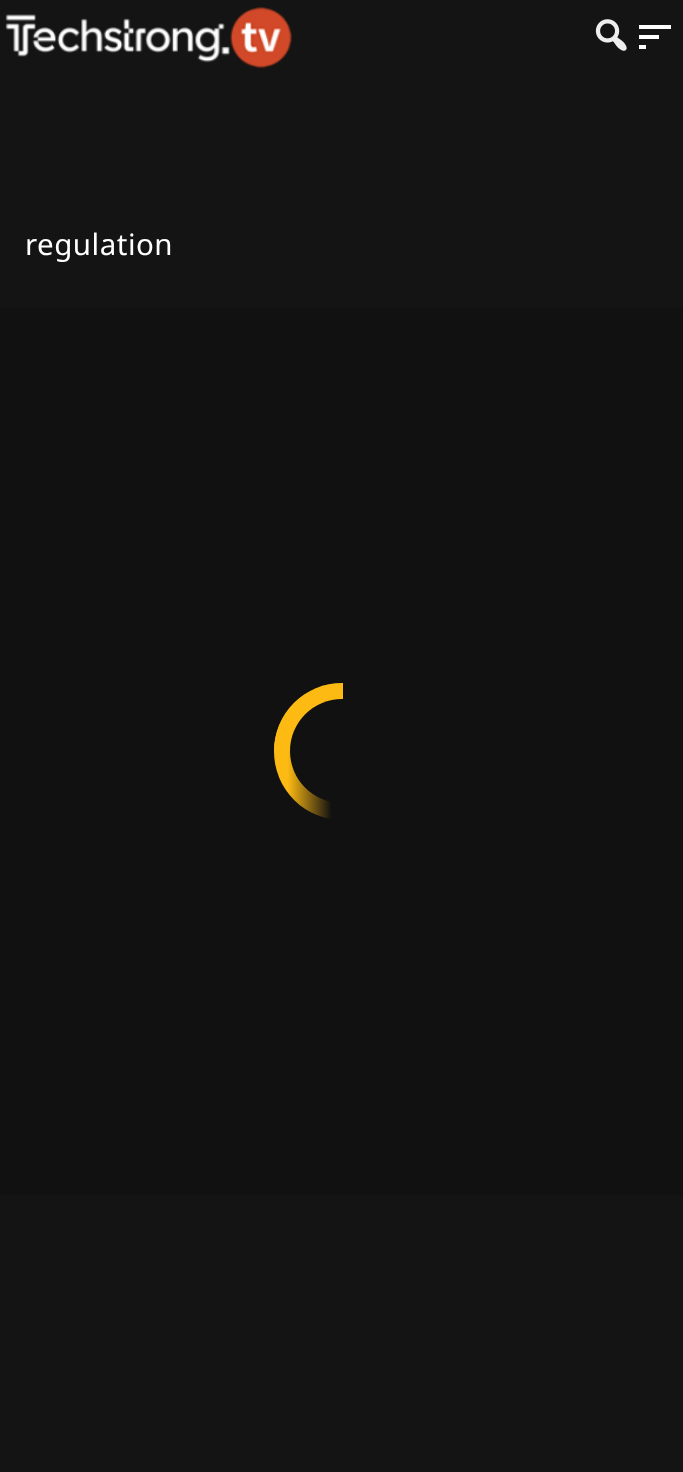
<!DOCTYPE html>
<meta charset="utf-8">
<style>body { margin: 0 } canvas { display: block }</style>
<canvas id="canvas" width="683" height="1472"></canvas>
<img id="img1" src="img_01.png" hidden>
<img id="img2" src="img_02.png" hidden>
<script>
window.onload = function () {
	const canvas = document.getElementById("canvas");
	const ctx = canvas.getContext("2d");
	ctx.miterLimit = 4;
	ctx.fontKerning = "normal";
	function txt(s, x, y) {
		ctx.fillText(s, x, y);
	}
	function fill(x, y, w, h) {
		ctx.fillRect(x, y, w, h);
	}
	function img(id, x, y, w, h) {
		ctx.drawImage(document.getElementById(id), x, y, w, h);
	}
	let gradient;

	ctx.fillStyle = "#141414";
	fill(0, 0, 683, 1472);
	img("img1", 5, 7, 287, 62);
	img("img2", 595, 19, 32, 32);
	ctx.fillStyle = "#FFFFFF";
	fill(639, 35, 20, 4);
	fill(639, 25, 32, 4);
	fill(639, 45, 7, 4);
	ctx.fillStyle = "#111111";
	fill(0, 308, 683, 887);
	gradient = ctx.createLinearGradient(274, 751, 411, 751);
	gradient.addColorStop(0.1, "#FDBA13");
	gradient.addColorStop(0.42, "#111111");
	ctx.fillStyle = gradient;
	ctx.beginPath();
	ctx.arc(342.5, 751.5, 68.5, 0, Math.PI * 2);
	ctx.fill();
	ctx.fillStyle = "#FDBA13";
	ctx.beginPath();
	ctx.roundRect(274, 683, 69, 68, [68, 0, 0, 0]);
	ctx.fill();
	ctx.fillStyle = "#111111";
	ctx.beginPath();
	ctx.arc(342, 751, 52, 0, Math.PI * 2);
	ctx.fill();
	ctx.letterSpacing = "0.5px";
	ctx.font = "29.5px Noto Sans";
	ctx.fillStyle = "#FFFFFF";
	txt("regulation", 25, 255);
};
</script>
